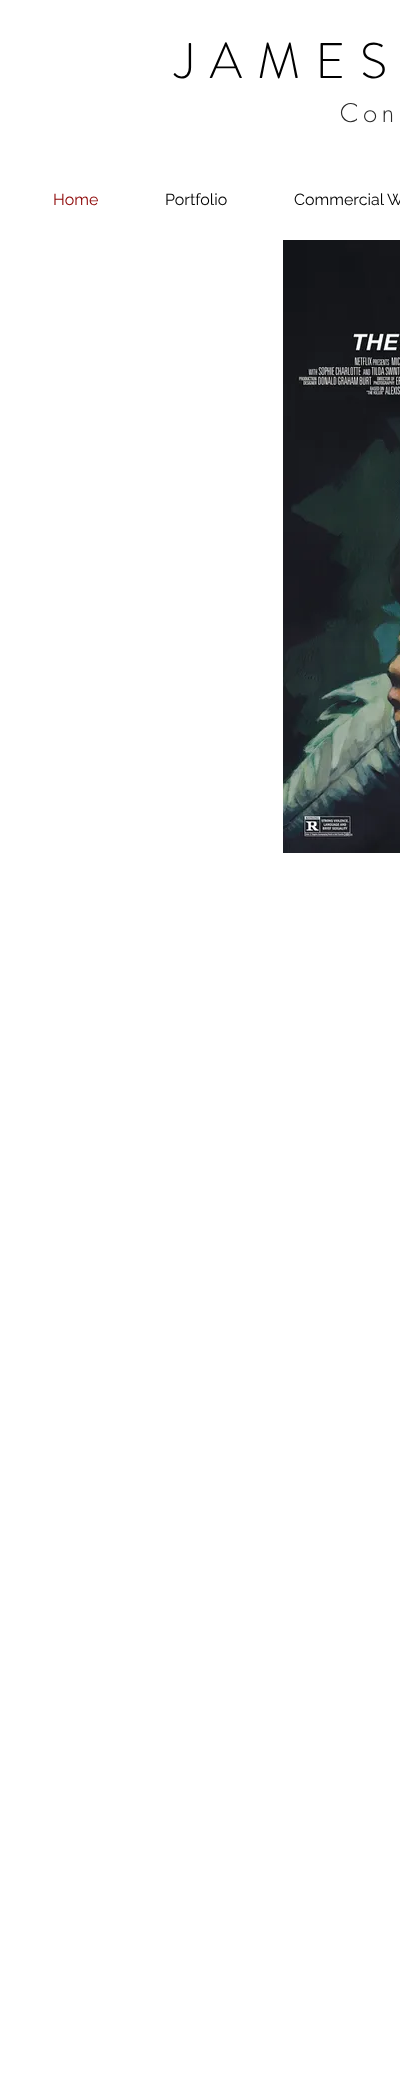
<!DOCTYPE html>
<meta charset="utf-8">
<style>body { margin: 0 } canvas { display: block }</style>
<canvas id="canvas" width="400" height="2097"></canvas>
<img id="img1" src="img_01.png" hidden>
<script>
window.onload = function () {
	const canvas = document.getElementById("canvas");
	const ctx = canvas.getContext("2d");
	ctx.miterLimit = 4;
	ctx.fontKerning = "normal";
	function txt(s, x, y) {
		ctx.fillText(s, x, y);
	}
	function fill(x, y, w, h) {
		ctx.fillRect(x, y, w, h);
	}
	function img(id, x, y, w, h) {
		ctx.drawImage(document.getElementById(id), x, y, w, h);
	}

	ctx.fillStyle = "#FFFFFF";
	fill(0, 0, 400, 2097);
	img("img1", 283, 240, 117, 613);
	ctx.letterSpacing = "15px";
	ctx.font = "300 50px 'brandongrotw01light'";
	ctx.fillStyle = "#000000";
	txt("JAMES", 175, 78);
	ctx.letterSpacing = "5px";
	ctx.font = "300 25px futura";
	ctx.fillStyle = "#292929";
	txt("Con", 340, 122);
	ctx.letterSpacing = "0px";
	ctx.font = "16px Raleway";
	ctx.fillStyle = "#8B0000";
	txt("Home", 53, 205);
	ctx.fillStyle = "#000000";
	txt("Portfolio", 165, 205);
	txt("Commercial W", 294, 205);
};
</script>
